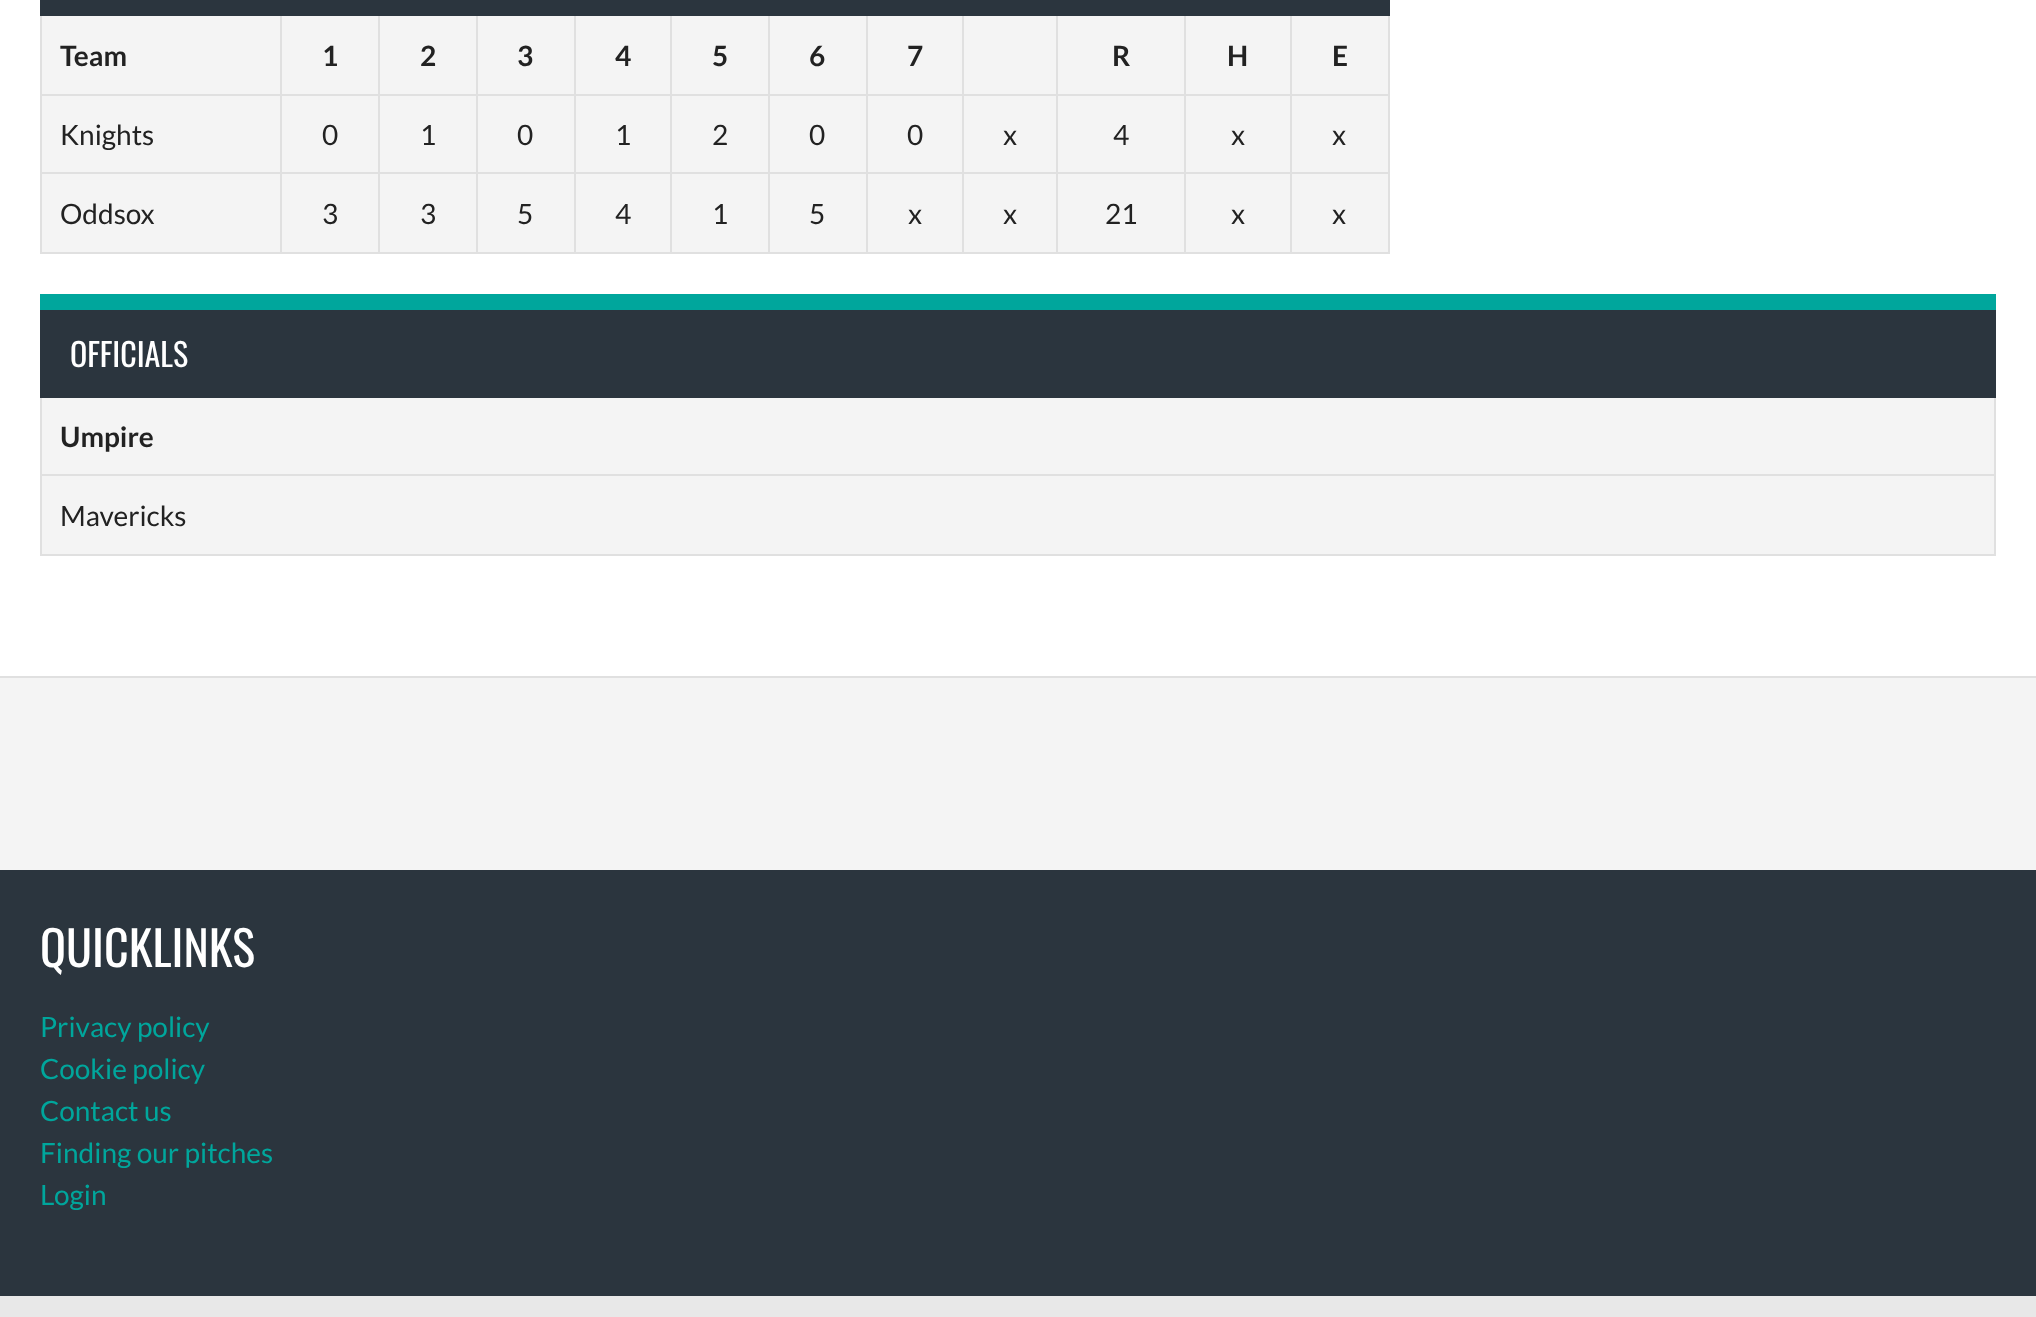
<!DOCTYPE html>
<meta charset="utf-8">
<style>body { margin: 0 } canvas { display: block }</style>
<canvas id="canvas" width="2036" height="1317"></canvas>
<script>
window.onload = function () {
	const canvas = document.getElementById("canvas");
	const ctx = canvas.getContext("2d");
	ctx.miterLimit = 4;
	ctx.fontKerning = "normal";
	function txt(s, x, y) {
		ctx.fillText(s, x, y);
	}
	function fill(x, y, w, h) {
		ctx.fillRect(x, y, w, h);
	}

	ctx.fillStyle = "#E8E8E8";
	fill(0, 0, 2036, 1317);
	ctx.fillStyle = "#FFFFFF";
	fill(0, 0, 2036, 676);
	ctx.fillStyle = "#E0E0E0";
	fill(1388, 14, 2, 240);
	fill(40, 252, 1350, 2);
	fill(40, 14, 2, 240);
	ctx.fillStyle = "#F4F4F4";
	fill(42, 16, 1346, 236);
	ctx.fillStyle = "#E0E0E0";
	fill(1290, 94, 100, 2);
	fill(1290, 172, 100, 2);
	fill(1290, 172, 2, 82);
	fill(1184, 172, 108, 2);
	fill(1290, 94, 2, 80);
	fill(1184, 94, 108, 2);
	fill(1184, 172, 2, 82);
	fill(1056, 172, 130, 2);
	fill(1184, 94, 2, 80);
	fill(1056, 94, 130, 2);
	fill(1056, 172, 2, 82);
	fill(962, 172, 96, 2);
	fill(1056, 94, 2, 80);
	fill(962, 94, 96, 2);
	fill(962, 172, 2, 82);
	fill(866, 172, 98, 2);
	fill(962, 94, 2, 80);
	fill(866, 94, 98, 2);
	fill(866, 172, 2, 82);
	fill(768, 172, 100, 2);
	fill(866, 94, 2, 80);
	fill(768, 94, 100, 2);
	fill(768, 172, 2, 82);
	fill(670, 172, 100, 2);
	fill(768, 94, 2, 80);
	fill(670, 94, 100, 2);
	fill(670, 172, 2, 82);
	fill(574, 172, 98, 2);
	fill(670, 94, 2, 80);
	fill(574, 94, 98, 2);
	fill(574, 172, 2, 82);
	fill(476, 172, 100, 2);
	fill(574, 94, 2, 80);
	fill(476, 94, 100, 2);
	fill(476, 172, 2, 82);
	fill(378, 172, 100, 2);
	fill(476, 94, 2, 80);
	fill(378, 94, 100, 2);
	fill(378, 172, 2, 82);
	fill(280, 172, 100, 2);
	fill(378, 94, 2, 80);
	fill(280, 94, 100, 2);
	fill(280, 172, 2, 82);
	fill(40, 172, 242, 2);
	fill(280, 94, 2, 80);
	fill(40, 94, 242, 2);
	fill(280, 14, 2, 82);
	fill(378, 14, 2, 82);
	fill(476, 14, 2, 82);
	fill(574, 14, 2, 82);
	fill(670, 14, 2, 82);
	fill(768, 14, 2, 82);
	fill(866, 14, 2, 82);
	fill(962, 14, 2, 82);
	fill(1056, 14, 2, 82);
	fill(1184, 14, 2, 82);
	fill(1290, 14, 2, 82);
	ctx.fillStyle = "#2B353E";
	fill(40, 0, 1350, 16);
	ctx.fillStyle = "#E0E0E0";
	fill(1994, 396, 2, 160);
	fill(40, 554, 1956, 2);
	fill(40, 396, 2, 160);
	ctx.fillStyle = "#2B353E";
	fill(40, 310, 1956, 88);
	ctx.fillStyle = "#00A69C";
	fill(40, 294, 1956, 16);
	ctx.fillStyle = "#F4F4F4";
	fill(42, 398, 1952, 156);
	ctx.fillStyle = "#E0E0E0";
	fill(40, 474, 1956, 2);
	ctx.fillStyle = "#F4F4F4";
	fill(0, 678, 2036, 192);
	ctx.fillStyle = "#E0E0E0";
	fill(0, 676, 2036, 2);
	ctx.fillStyle = "#2B353E";
	fill(0, 870, 2036, 426);
	ctx.font = "bold 28px Lato";
	ctx.fillStyle = "#222222";
	txt("Team", 60, 66);
	txt("1", 322, 66);
	txt("2", 420, 66);
	txt("3", 517, 66);
	txt("4", 615, 66);
	txt("5", 712, 66);
	txt("6", 809, 66);
	txt("7", 907, 66);
	txt("R", 1112, 66);
	txt("H", 1227, 66);
	txt("E", 1332, 66);
	ctx.font = "28px Lato";
	txt("Knights", 60, 145);
	txt("0", 322, 145);
	txt("1", 420, 145);
	txt("0", 517, 145);
	txt("1", 615, 145);
	txt("2", 712, 145);
	txt("0", 809, 145);
	txt("0", 907, 145);
	txt("x", 1003, 145);
	txt("4", 1113, 145);
	txt("x", 1231, 145);
	txt("x", 1332, 145);
	txt("Oddsox", 60, 224);
	txt("3", 322, 224);
	txt("3", 420, 224);
	txt("5", 517, 224);
	txt("4", 615, 224);
	txt("1", 712, 224);
	txt("5", 809, 224);
	txt("x", 908, 224);
	txt("x", 1003, 224);
	txt("21", 1105, 224);
	txt("x", 1231, 224);
	txt("x", 1332, 224);
	ctx.font = "32px Oswald";
	ctx.fillStyle = "#FFFFFF";
	txt("OFFICIALS", 70, 367);
	ctx.font = "bold 28px Lato";
	ctx.fillStyle = "#222222";
	txt("Umpire", 60, 447);
	ctx.font = "28px Lato";
	txt("Mavericks", 60, 526);
	ctx.font = "48px Oswald";
	ctx.fillStyle = "#FFFFFF";
	txt("QUICKLINKS", 40, 967);
	ctx.font = "28px Lato";
	ctx.fillStyle = "#00A69C";
	txt("Privacy policy", 40, 1037);
	txt("Cookie policy", 40, 1079);
	txt("Contact us", 40, 1121);
	txt("Finding our pitches", 40, 1163);
	txt("Login", 40, 1205);
};
</script>
